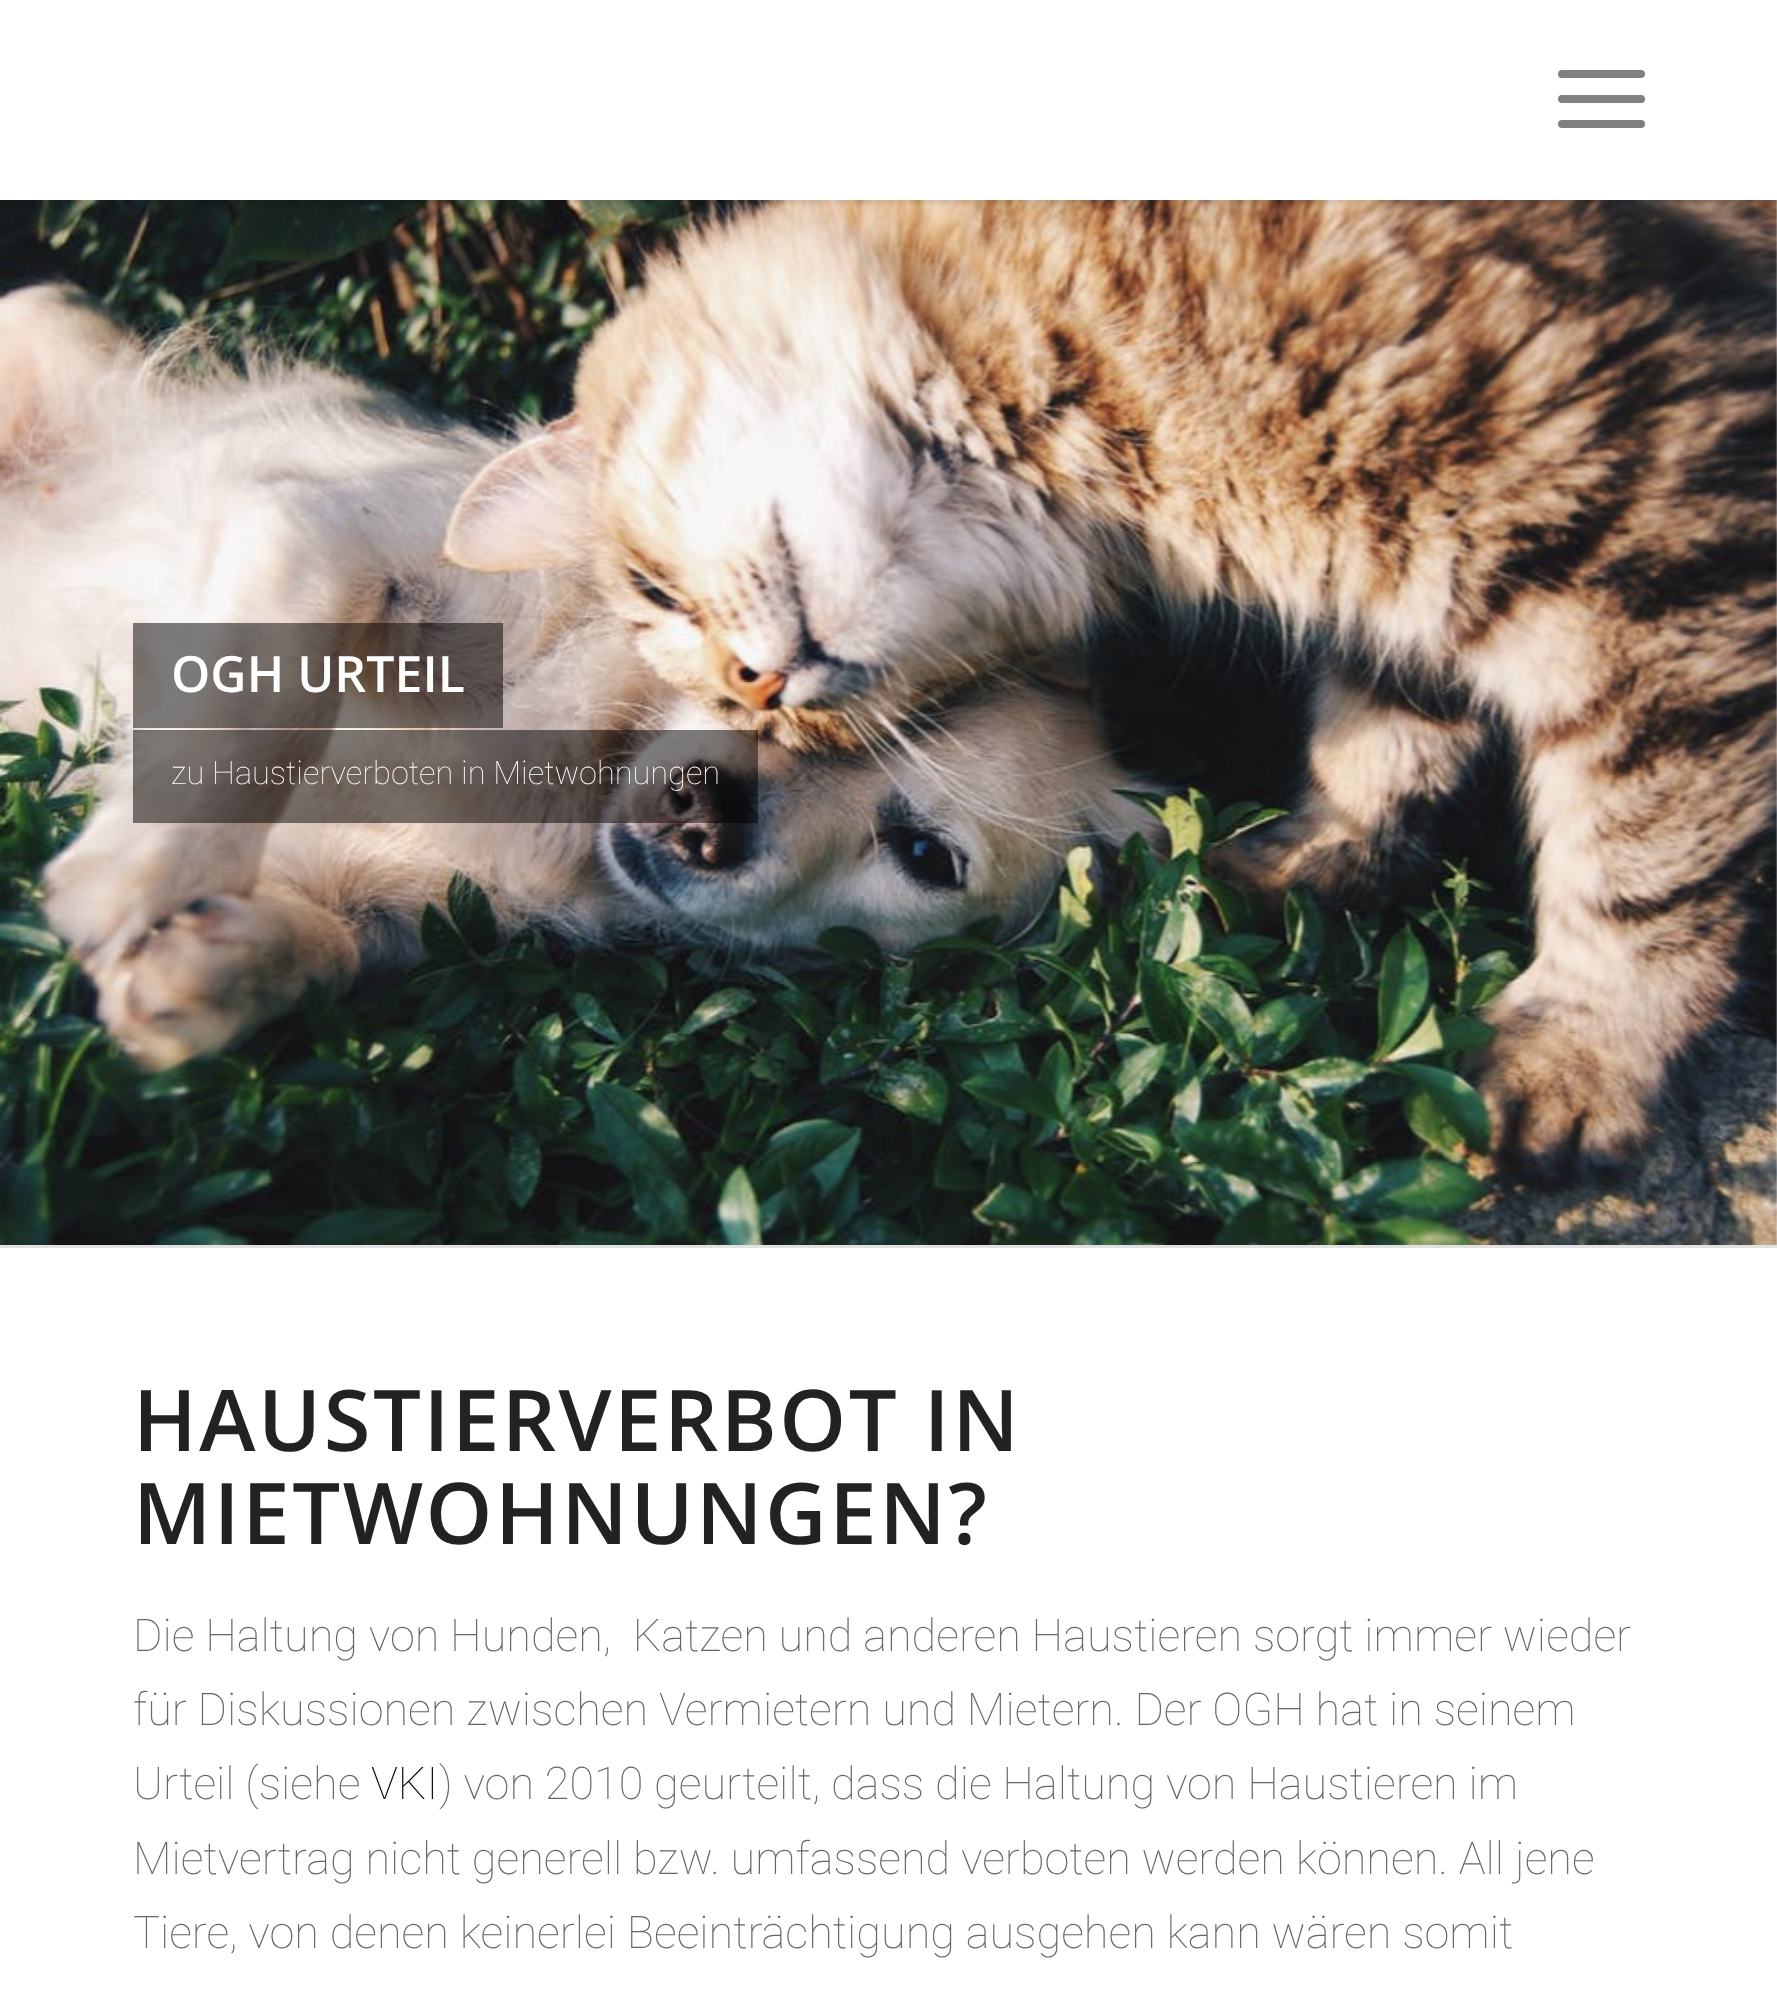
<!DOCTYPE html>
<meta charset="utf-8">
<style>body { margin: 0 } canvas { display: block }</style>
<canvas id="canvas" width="1777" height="1997"></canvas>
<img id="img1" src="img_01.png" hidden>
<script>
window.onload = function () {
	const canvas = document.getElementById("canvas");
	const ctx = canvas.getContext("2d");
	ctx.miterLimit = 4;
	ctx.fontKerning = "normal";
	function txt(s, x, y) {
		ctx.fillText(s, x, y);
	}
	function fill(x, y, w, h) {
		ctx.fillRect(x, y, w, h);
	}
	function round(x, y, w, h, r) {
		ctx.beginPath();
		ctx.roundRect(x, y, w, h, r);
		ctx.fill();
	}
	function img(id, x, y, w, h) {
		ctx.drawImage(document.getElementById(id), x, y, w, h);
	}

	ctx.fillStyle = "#FFFFFF";
	fill(0, 0, 1777, 1997);
	img("img1", 0, 200, 1777, 1045);
	ctx.fillStyle = "rgba(0, 0, 0, 0.1)";
	ctx.filter = "blur(2.5px)";
	ctx.beginPath();
	ctx.rect(-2, -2, 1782, 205);
	ctx.fill();
	ctx.filter = "none";
	ctx.fillStyle = "#FFFFFF";
	fill(0, 0, 1777, 200);
	ctx.fillStyle = "#808080";
	round(1558, 95, 87, 8, 4);
	round(1558, 70, 87, 8, 4);
	round(1558, 120, 87, 8, 4);
	ctx.fillStyle = "rgba(0, 0, 0, 0.5)";
	fill(133, 623, 370, 105);
	fill(133, 730, 625, 93);
	ctx.fillStyle = "#E1E1E1";
	fill(0, 1245, 1777, 3);
	ctx.font = "600 50px Open Sans";
	ctx.fillStyle = "#FFFFFF";
	txt("OGH URTEIL", 171, 692);
	ctx.font = "100 32.5px Roboto";
	txt("zu Haustierverboten in Mietwohnungen", 171, 784);
	ctx.letterSpacing = "2.5px";
	ctx.font = "600 85px Open Sans";
	ctx.fillStyle = "#222222";
	txt("HAUSTIERVERBOT IN", 133, 1451);
	txt("MIETWOHNUNGEN?", 133, 1544);
	ctx.letterSpacing = "0px";
	ctx.font = "100 45px Roboto";
	ctx.fillStyle = "#666666";
	txt("Die Haltung von Hunden,  Katzen und anderen Haustieren sorgt immer wieder", 133, 1651);
	txt("für Diskussionen zwischen Vermietern und Mietern. Der OGH hat in seinem", 133, 1725);
	txt("Urteil (siehe", 133, 1799);
	ctx.fillStyle = "#000000";
	txt("VKI", 371, 1799);
	ctx.fillStyle = "#666666";
	txt(") von 2010 geurteilt, dass die Haltung von Haustieren im", 439, 1799);
	txt("Mietvertrag nicht generell bzw. umfassend verboten werden können. All jene", 133, 1874);
	txt("Tiere, von denen keinerlei Beeinträchtigung ausgehen kann wären somit", 133, 1948);
};
</script>
